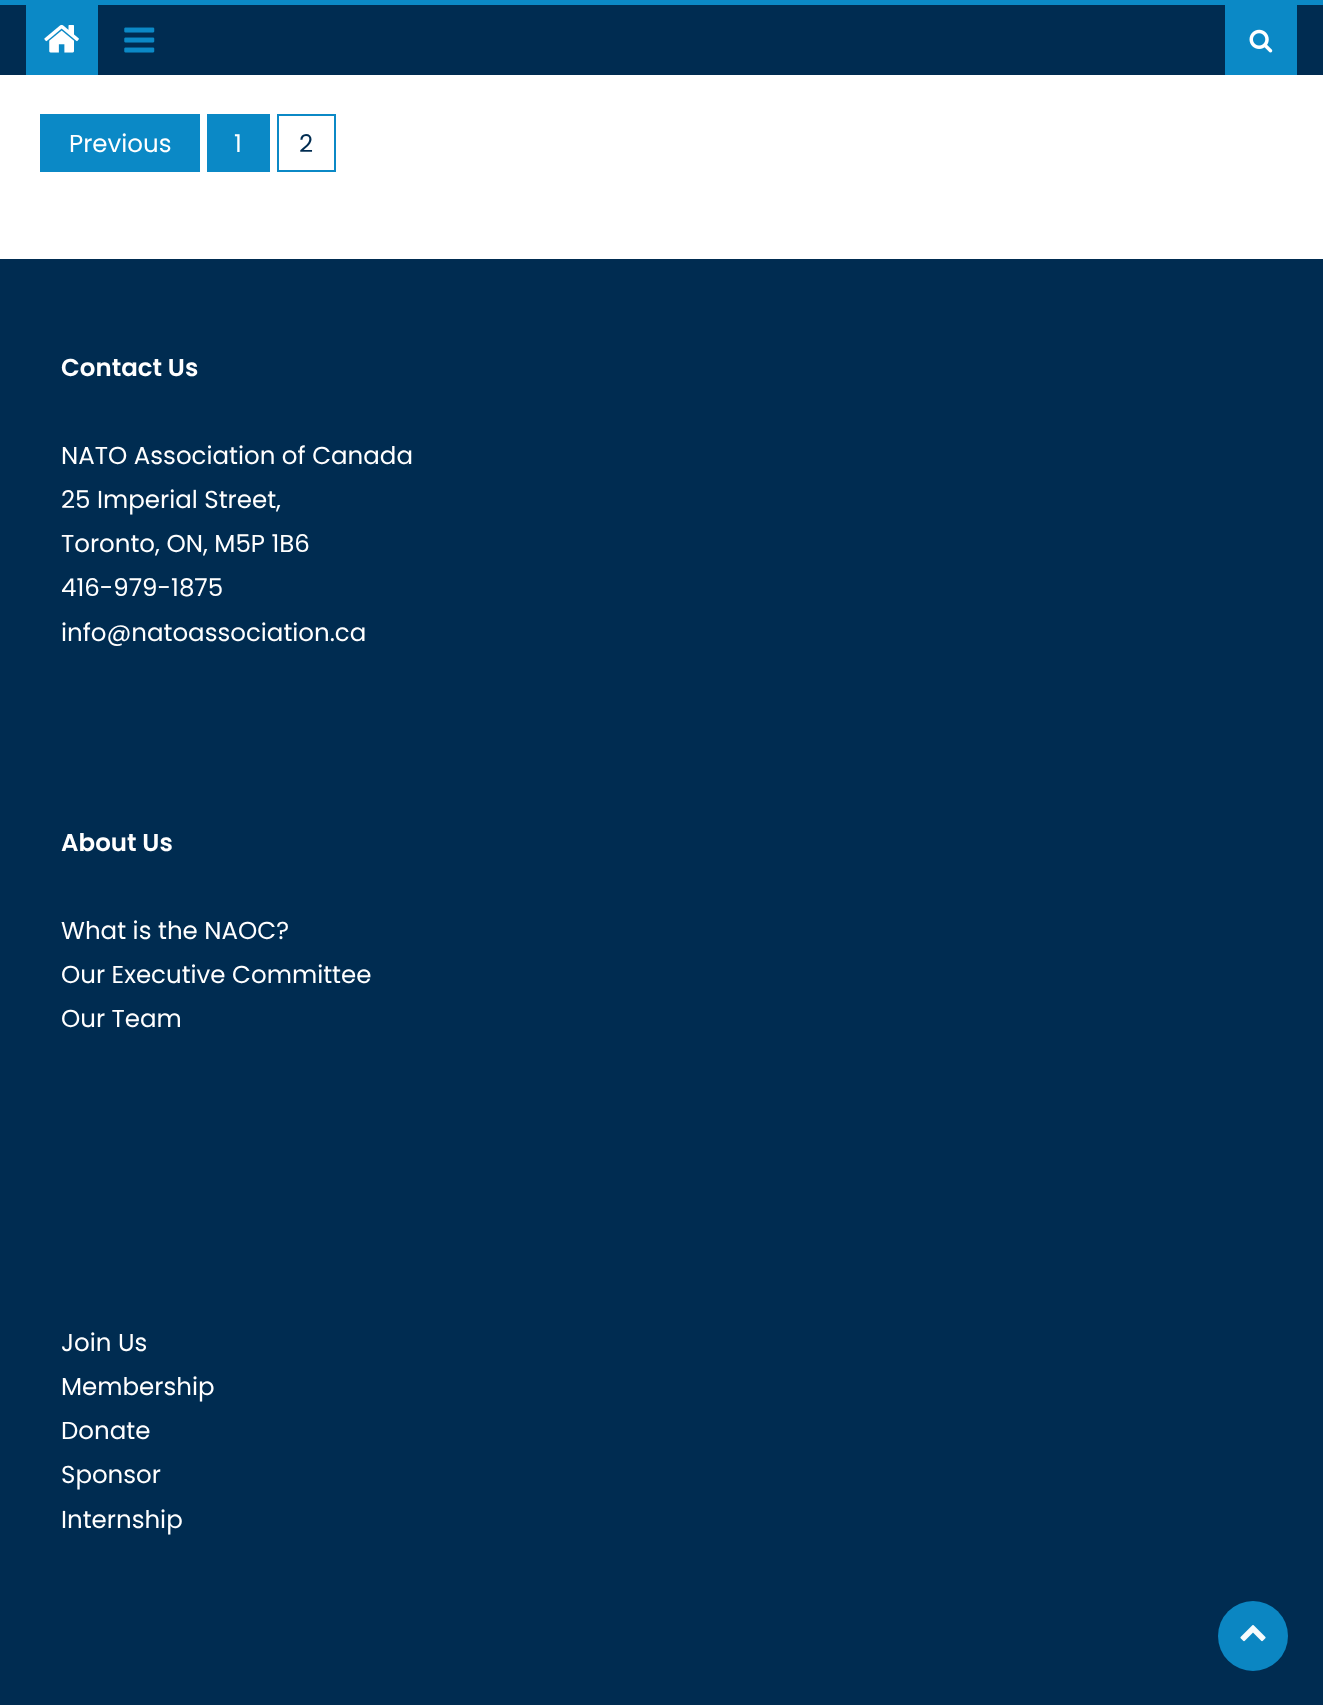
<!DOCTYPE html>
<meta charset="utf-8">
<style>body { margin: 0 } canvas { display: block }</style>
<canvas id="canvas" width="1323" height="1705"></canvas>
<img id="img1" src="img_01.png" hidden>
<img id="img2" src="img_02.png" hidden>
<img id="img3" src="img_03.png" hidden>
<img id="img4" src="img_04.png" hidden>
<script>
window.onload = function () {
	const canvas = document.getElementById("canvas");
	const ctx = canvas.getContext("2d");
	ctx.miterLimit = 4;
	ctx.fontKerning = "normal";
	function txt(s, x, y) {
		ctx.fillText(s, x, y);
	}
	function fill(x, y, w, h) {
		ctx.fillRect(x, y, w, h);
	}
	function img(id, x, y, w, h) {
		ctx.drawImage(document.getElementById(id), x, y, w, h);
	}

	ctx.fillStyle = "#FFFFFF";
	fill(0, 0, 1323, 1705);
	ctx.fillStyle = "#002C51";
	fill(0, 5, 1323, 70);
	ctx.fillStyle = "#0B89C6";
	fill(0, 0, 1323, 5);
	fill(26, 5, 72, 70);
	img("img1", 44, 24, 35, 29);
	img("img2", 124, 27, 31, 26);
	fill(1225, 5, 72, 70);
	img("img3", 1249, 29, 24, 24);
	fill(40, 114, 160, 58);
	fill(207, 114, 63, 58);
	ctx.strokeStyle = "#0B89C6";
	ctx.lineWidth = 2;
	ctx.strokeRect(278, 115, 57, 56);
	ctx.fillStyle = "#002C51";
	fill(0, 259, 1323, 1446);
	ctx.fillStyle = "#0B86C2";
	ctx.beginPath();
	ctx.arc(1253, 1636, 35, 0, Math.PI * 2);
	ctx.fill();
	img("img4", 1240, 1625, 26, 17);
	ctx.font = "24.5px Poppins";
	ctx.fillStyle = "#FFFFFF";
	txt("Previous", 69, 152);
	txt("1", 234, 152);
	ctx.fillStyle = "#002C51";
	txt("2", 299, 152);
	ctx.font = "600 24.5px Poppins";
	ctx.fillStyle = "#FFFFFF";
	txt("Contact Us", 61, 376);
	ctx.font = "24.5px Poppins";
	txt("NATO Association of Canada", 61, 464);
	txt("25 Imperial Street,", 61, 508);
	txt("Toronto, ON, M5P 1B6", 61, 552);
	txt("416-979-1875", 61, 596);
	txt("info@natoassociation.ca", 61, 641);
	ctx.font = "600 24.5px Poppins";
	txt("About Us", 61, 851);
	ctx.font = "24.5px Poppins";
	txt("What is the NAOC?", 61, 939);
	txt("Our Executive Committee", 61, 983);
	txt("Our Team", 61, 1027);
	txt("Join Us", 61, 1351);
	txt("Membership", 61, 1395);
	txt("Donate", 61, 1439);
	txt("Sponsor", 61, 1483);
	txt("Internship", 61, 1528);
};
</script>
